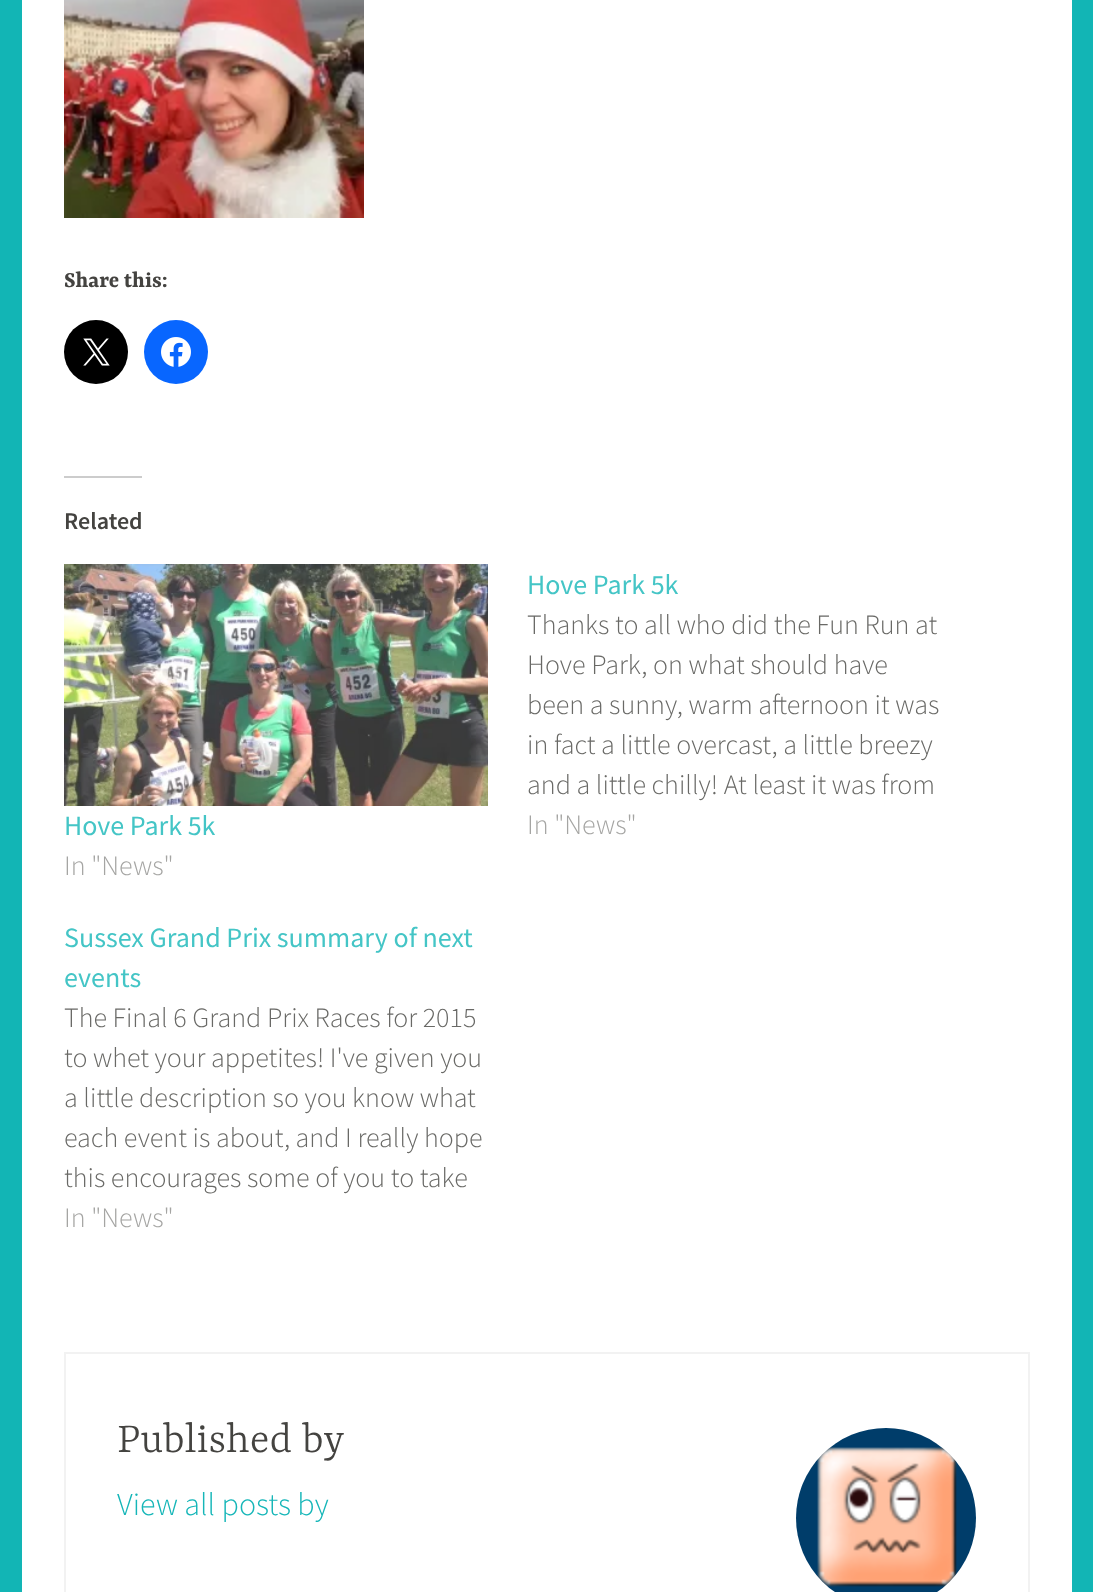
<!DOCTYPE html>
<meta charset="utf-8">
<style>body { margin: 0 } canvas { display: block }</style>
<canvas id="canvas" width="1093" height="1592"></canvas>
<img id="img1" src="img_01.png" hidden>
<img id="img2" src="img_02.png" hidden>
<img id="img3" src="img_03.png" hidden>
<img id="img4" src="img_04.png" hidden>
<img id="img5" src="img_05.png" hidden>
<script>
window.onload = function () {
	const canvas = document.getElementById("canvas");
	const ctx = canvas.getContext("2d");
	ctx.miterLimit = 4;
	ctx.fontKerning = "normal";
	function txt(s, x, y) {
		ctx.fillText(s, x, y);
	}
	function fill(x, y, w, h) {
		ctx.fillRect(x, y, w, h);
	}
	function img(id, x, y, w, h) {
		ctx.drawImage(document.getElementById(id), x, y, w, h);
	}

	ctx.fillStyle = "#12B5B5";
	fill(0, 0, 1093, 1592);
	ctx.fillStyle = "#FFFFFF";
	fill(22, 0, 1050, 1592);
	img("img1", 64, 0, 300, 218);
	ctx.fillStyle = "#000000";
	ctx.beginPath();
	ctx.arc(96, 352, 32, 0, Math.PI * 2);
	ctx.fill();
	img("img2", 83, 338, 27, 28);
	ctx.fillStyle = "#0866FF";
	ctx.beginPath();
	ctx.arc(176, 352, 32, 0, Math.PI * 2);
	ctx.fill();
	img("img3", 161, 337, 30, 30);
	ctx.fillStyle = "#CCCCCC";
	fill(64, 476, 78, 2);
	img("img4", 64, 564, 424, 242);
	ctx.strokeStyle = "#F2F2F2";
	ctx.lineWidth = 2;
	ctx.strokeRect(65, 1353, 964, 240);
	img("img5", 796, 1428, 180, 164);
	ctx.font = "bold 24px Yrsa";
	ctx.fillStyle = "#444340";
	txt("Share this:", 64, 287);
	ctx.font = "600 24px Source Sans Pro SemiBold";
	txt("Related", 64, 529);
	ctx.font = "28px Source Sans Pro";
	ctx.fillStyle = "#44C5C6";
	txt("Hove Park 5k", 527, 594);
	ctx.font = "300 28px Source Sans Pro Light";
	ctx.fillStyle = "#696966";
	txt("Thanks to all who did the Fun Run at", 527, 634);
	txt("Hove Park, on what should have", 527, 674);
	txt("been a sunny, warm afternoon it was", 527, 714);
	txt("in fact a little overcast, a little breezy", 527, 754);
	txt("and a little chilly! At least it was from", 527, 794);
	ctx.fillStyle = "#A5A5A3";
	txt("In \"News\"", 527, 834);
	ctx.font = "28px Source Sans Pro";
	ctx.fillStyle = "#44C5C6";
	txt("Hove Park 5k", 64, 835);
	ctx.font = "300 28px Source Sans Pro Light";
	ctx.fillStyle = "#A5A5A3";
	txt("In \"News\"", 64, 875);
	ctx.font = "28px Source Sans Pro";
	ctx.fillStyle = "#44C5C6";
	txt("Sussex Grand Prix summary of next", 64, 947);
	txt("events", 64, 987);
	ctx.font = "300 28px Source Sans Pro Light";
	ctx.fillStyle = "#696966";
	txt("The Final 6 Grand Prix Races for 2015", 64, 1027);
	txt("to whet your appetites! I've given you", 64, 1067);
	txt("a little description so you know what", 64, 1107);
	txt("each event is about, and I really hope", 64, 1147);
	txt("this encourages some of you to take", 64, 1187);
	ctx.fillStyle = "#A5A5A3";
	txt("In \"News\"", 64, 1227);
	ctx.font = "300 46px Yrsa";
	ctx.fillStyle = "#444340";
	txt("Published by", 117, 1452);
	ctx.font = "300 32px Source Sans Pro Light";
	ctx.fillStyle = "#15B6B8";
	txt("View all posts by", 117, 1515);
};
</script>
